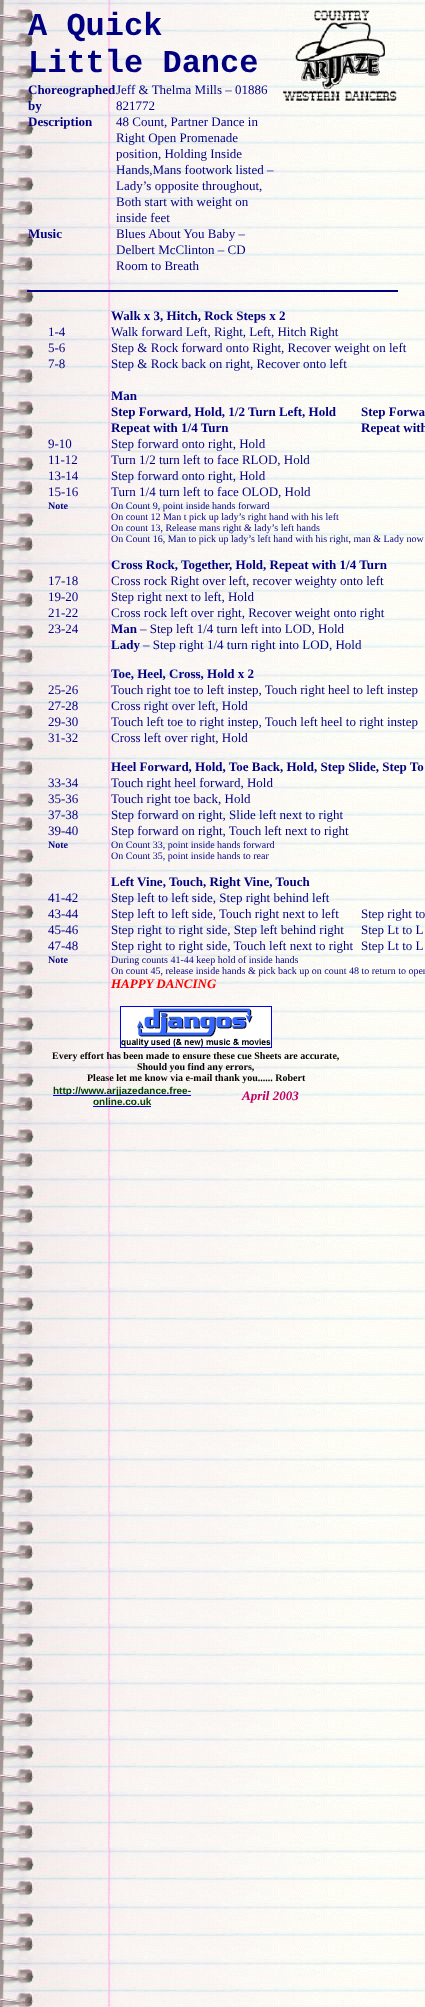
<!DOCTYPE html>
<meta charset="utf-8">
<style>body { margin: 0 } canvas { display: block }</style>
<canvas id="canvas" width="425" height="2007"></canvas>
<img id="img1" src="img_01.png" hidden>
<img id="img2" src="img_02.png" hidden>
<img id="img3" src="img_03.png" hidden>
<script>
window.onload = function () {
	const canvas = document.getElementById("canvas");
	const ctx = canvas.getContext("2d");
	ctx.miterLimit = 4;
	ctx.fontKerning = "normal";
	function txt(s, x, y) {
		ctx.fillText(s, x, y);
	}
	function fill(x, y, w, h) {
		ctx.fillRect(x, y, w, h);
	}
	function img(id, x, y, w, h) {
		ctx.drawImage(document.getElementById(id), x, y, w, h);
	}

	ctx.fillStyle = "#FFFFFF";
	fill(0, 0, 425, 2007);
	img("img1", 0, 0, 425, 2007);
	img("img2", 283, 10, 114, 91);
	ctx.fillStyle = "#000080";
	fill(27, 290, 371, 2);
	ctx.strokeStyle = "#0000EE";
	ctx.strokeRect(120.5, 1006.5, 151, 41);
	img("img3", 121, 1007, 150, 40);
	ctx.fillStyle = "#0000EE";
	fill(53, 1095, 138, 1);
	fill(93, 1106, 58, 1);
	ctx.font = "bold 32px Liberation Mono";
	ctx.fillStyle = "#000080";
	txt("A Quick", 28, 35);
	txt("Little Dance", 28, 72);
	ctx.font = "bold 13px Liberation Serif";
	txt("Choreographed", 28, 94);
	txt("by", 28, 110);
	ctx.font = "13px Liberation Serif";
	txt("Jeff & Thelma Mills – 01886", 116, 94);
	txt("821772", 116, 110);
	ctx.font = "bold 13px Liberation Serif";
	txt("Description", 28, 126);
	ctx.font = "13px Liberation Serif";
	txt("48 Count, Partner Dance in", 116, 126);
	txt("Right Open Promenade", 116, 142);
	txt("position, Holding Inside", 116, 158);
	txt("Hands,Mans footwork listed –", 116, 174);
	txt("Lady’s opposite throughout,", 116, 190);
	txt("Both start with weight on", 116, 206);
	txt("inside feet", 116, 222);
	ctx.font = "bold 13px Liberation Serif";
	txt("Music", 28, 238);
	ctx.font = "13px Liberation Serif";
	txt("Blues About You Baby –", 116, 238);
	txt("Delbert McClinton – CD", 116, 254);
	txt("Room to Breath", 116, 270);
	ctx.font = "bold 13px Liberation Serif";
	txt("Walk x 3, Hitch, Rock Steps x 2", 111, 320);
	ctx.font = "13px Liberation Serif";
	txt("1-4", 48, 336);
	txt("Walk forward Left, Right, Left, Hitch Right", 111, 336);
	txt("5-6", 48, 352);
	txt("Step & Rock forward onto Right, Recover weight on left", 111, 352);
	txt("7-8", 48, 368);
	txt("Step & Rock back on right, Recover onto left", 111, 368);
	ctx.font = "bold 13px Liberation Serif";
	txt("Man", 111, 400);
	txt("Step Forward, Hold, 1/2 Turn Left, Hold", 111, 416);
	txt("Step Forwa", 361, 416);
	txt("Repeat with 1/4 Turn", 111, 432);
	txt("Repeat with", 361, 432);
	ctx.font = "13px Liberation Serif";
	txt("9-10", 48, 448);
	txt("Step forward onto right, Hold", 111, 448);
	txt("11-12", 48, 464);
	txt("Turn 1/2 turn left to face RLOD, Hold", 111, 464);
	txt("13-14", 48, 480);
	txt("Step forward onto right, Hold", 111, 480);
	txt("15-16", 48, 496);
	txt("Turn 1/4 turn left to face OLOD, Hold", 111, 496);
	ctx.font = "bold 10px Liberation Serif";
	txt("Note", 48, 509);
	ctx.font = "10px Liberation Serif";
	txt("On Count 9, point inside hands forward", 111, 509);
	txt("On count 12 Man t pick up lady’s right hand with his left", 111, 520);
	txt("On count 13, Release mans right & lady’s left hands", 111, 531);
	txt("On Count 16, Man to pick up lady’s left hand with his right, man & Lady now", 111, 542);
	ctx.font = "bold 13px Liberation Serif";
	txt("Cross Rock, Together, Hold, Repeat with 1/4 Turn", 111, 569);
	ctx.font = "13px Liberation Serif";
	txt("17-18", 48, 585);
	txt("Cross rock Right over left, recover weighty onto left", 111, 585);
	txt("19-20", 48, 601);
	txt("Step right next to left, Hold", 111, 601);
	txt("21-22", 48, 617);
	txt("Cross rock left over right, Recover weight onto right", 111, 617);
	txt("23-24", 48, 633);
	ctx.font = "bold 13px Liberation Serif";
	txt("Man", 111, 633);
	ctx.font = "13px Liberation Serif";
	txt("– Step left 1/4 turn left into LOD, Hold", 140, 633);
	ctx.font = "bold 13px Liberation Serif";
	txt("Lady", 111, 649);
	ctx.font = "13px Liberation Serif";
	txt("– Step right 1/4 turn right into LOD, Hold", 143, 649);
	ctx.font = "bold 13px Liberation Serif";
	txt("Toe, Heel, Cross, Hold x 2", 111, 678);
	ctx.font = "13px Liberation Serif";
	txt("25-26", 48, 694);
	txt("Touch right toe to left instep, Touch right heel to left instep", 111, 694);
	txt("27-28", 48, 710);
	txt("Cross right over left, Hold", 111, 710);
	txt("29-30", 48, 726);
	txt("Touch left toe to right instep, Touch left heel to right instep", 111, 726);
	txt("31-32", 48, 742);
	txt("Cross left over right, Hold", 111, 742);
	ctx.font = "bold 13px Liberation Serif";
	txt("Heel Forward, Hold, Toe Back, Hold, Step Slide, Step To", 111, 771);
	ctx.font = "13px Liberation Serif";
	txt("33-34", 48, 787);
	txt("Touch right heel forward, Hold", 111, 787);
	txt("35-36", 48, 803);
	txt("Touch right toe back, Hold", 111, 803);
	txt("37-38", 48, 819);
	txt("Step forward on right, Slide left next to right", 111, 819);
	txt("39-40", 48, 835);
	txt("Step forward on right, Touch left next to right", 111, 835);
	ctx.font = "bold 10px Liberation Serif";
	txt("Note", 48, 848);
	ctx.font = "10px Liberation Serif";
	txt("On Count 33, point inside hands forward", 111, 848);
	txt("On Count 35, point inside hands to rear", 111, 859);
	ctx.font = "bold 13px Liberation Serif";
	txt("Left Vine, Touch, Right Vine, Touch", 111, 886);
	ctx.font = "13px Liberation Serif";
	txt("41-42", 48, 902);
	txt("Step left to left side, Step right behind left", 111, 902);
	txt("43-44", 48, 918);
	txt("Step left to left side, Touch right next to left", 111, 918);
	txt("Step right to", 361, 918);
	txt("45-46", 48, 934);
	txt("Step right to right side, Step left behind right", 111, 934);
	txt("Step Lt to L", 361, 934);
	txt("47-48", 48, 950);
	txt("Step right to right side, Touch left next to right", 111, 950);
	txt("Step Lt to L", 361, 950);
	ctx.font = "bold 10px Liberation Serif";
	txt("Note", 48, 963);
	ctx.font = "10px Liberation Serif";
	txt("During counts 41-44 keep hold of inside hands", 111, 963);
	txt("On count 45, release inside hands & pick back up on count 48 to return to open", 111, 974);
	ctx.font = "italic bold 13px Liberation Serif";
	ctx.fillStyle = "#FF0000";
	txt("HAPPY DANCING", 111, 988);
	ctx.font = "bold 10px Liberation Serif";
	ctx.fillStyle = "#000000";
	txt("Every effort has been made to ensure these cue Sheets are accurate,", 52, 1059);
	txt("Should you find any errors,", 137, 1070);
	txt("Please let me know via e-mail thank you...... Robert", 87, 1081);
	ctx.font = "bold 10px Liberation Sans";
	ctx.fillStyle = "#004000";
	txt("http://www.arjjazedance.free-", 53, 1094);
	txt("online.co.uk", 93, 1105);
	ctx.font = "italic bold 13px Liberation Serif";
	ctx.fillStyle = "#C10061";
	txt("April 2003", 242, 1100);
};
</script>
